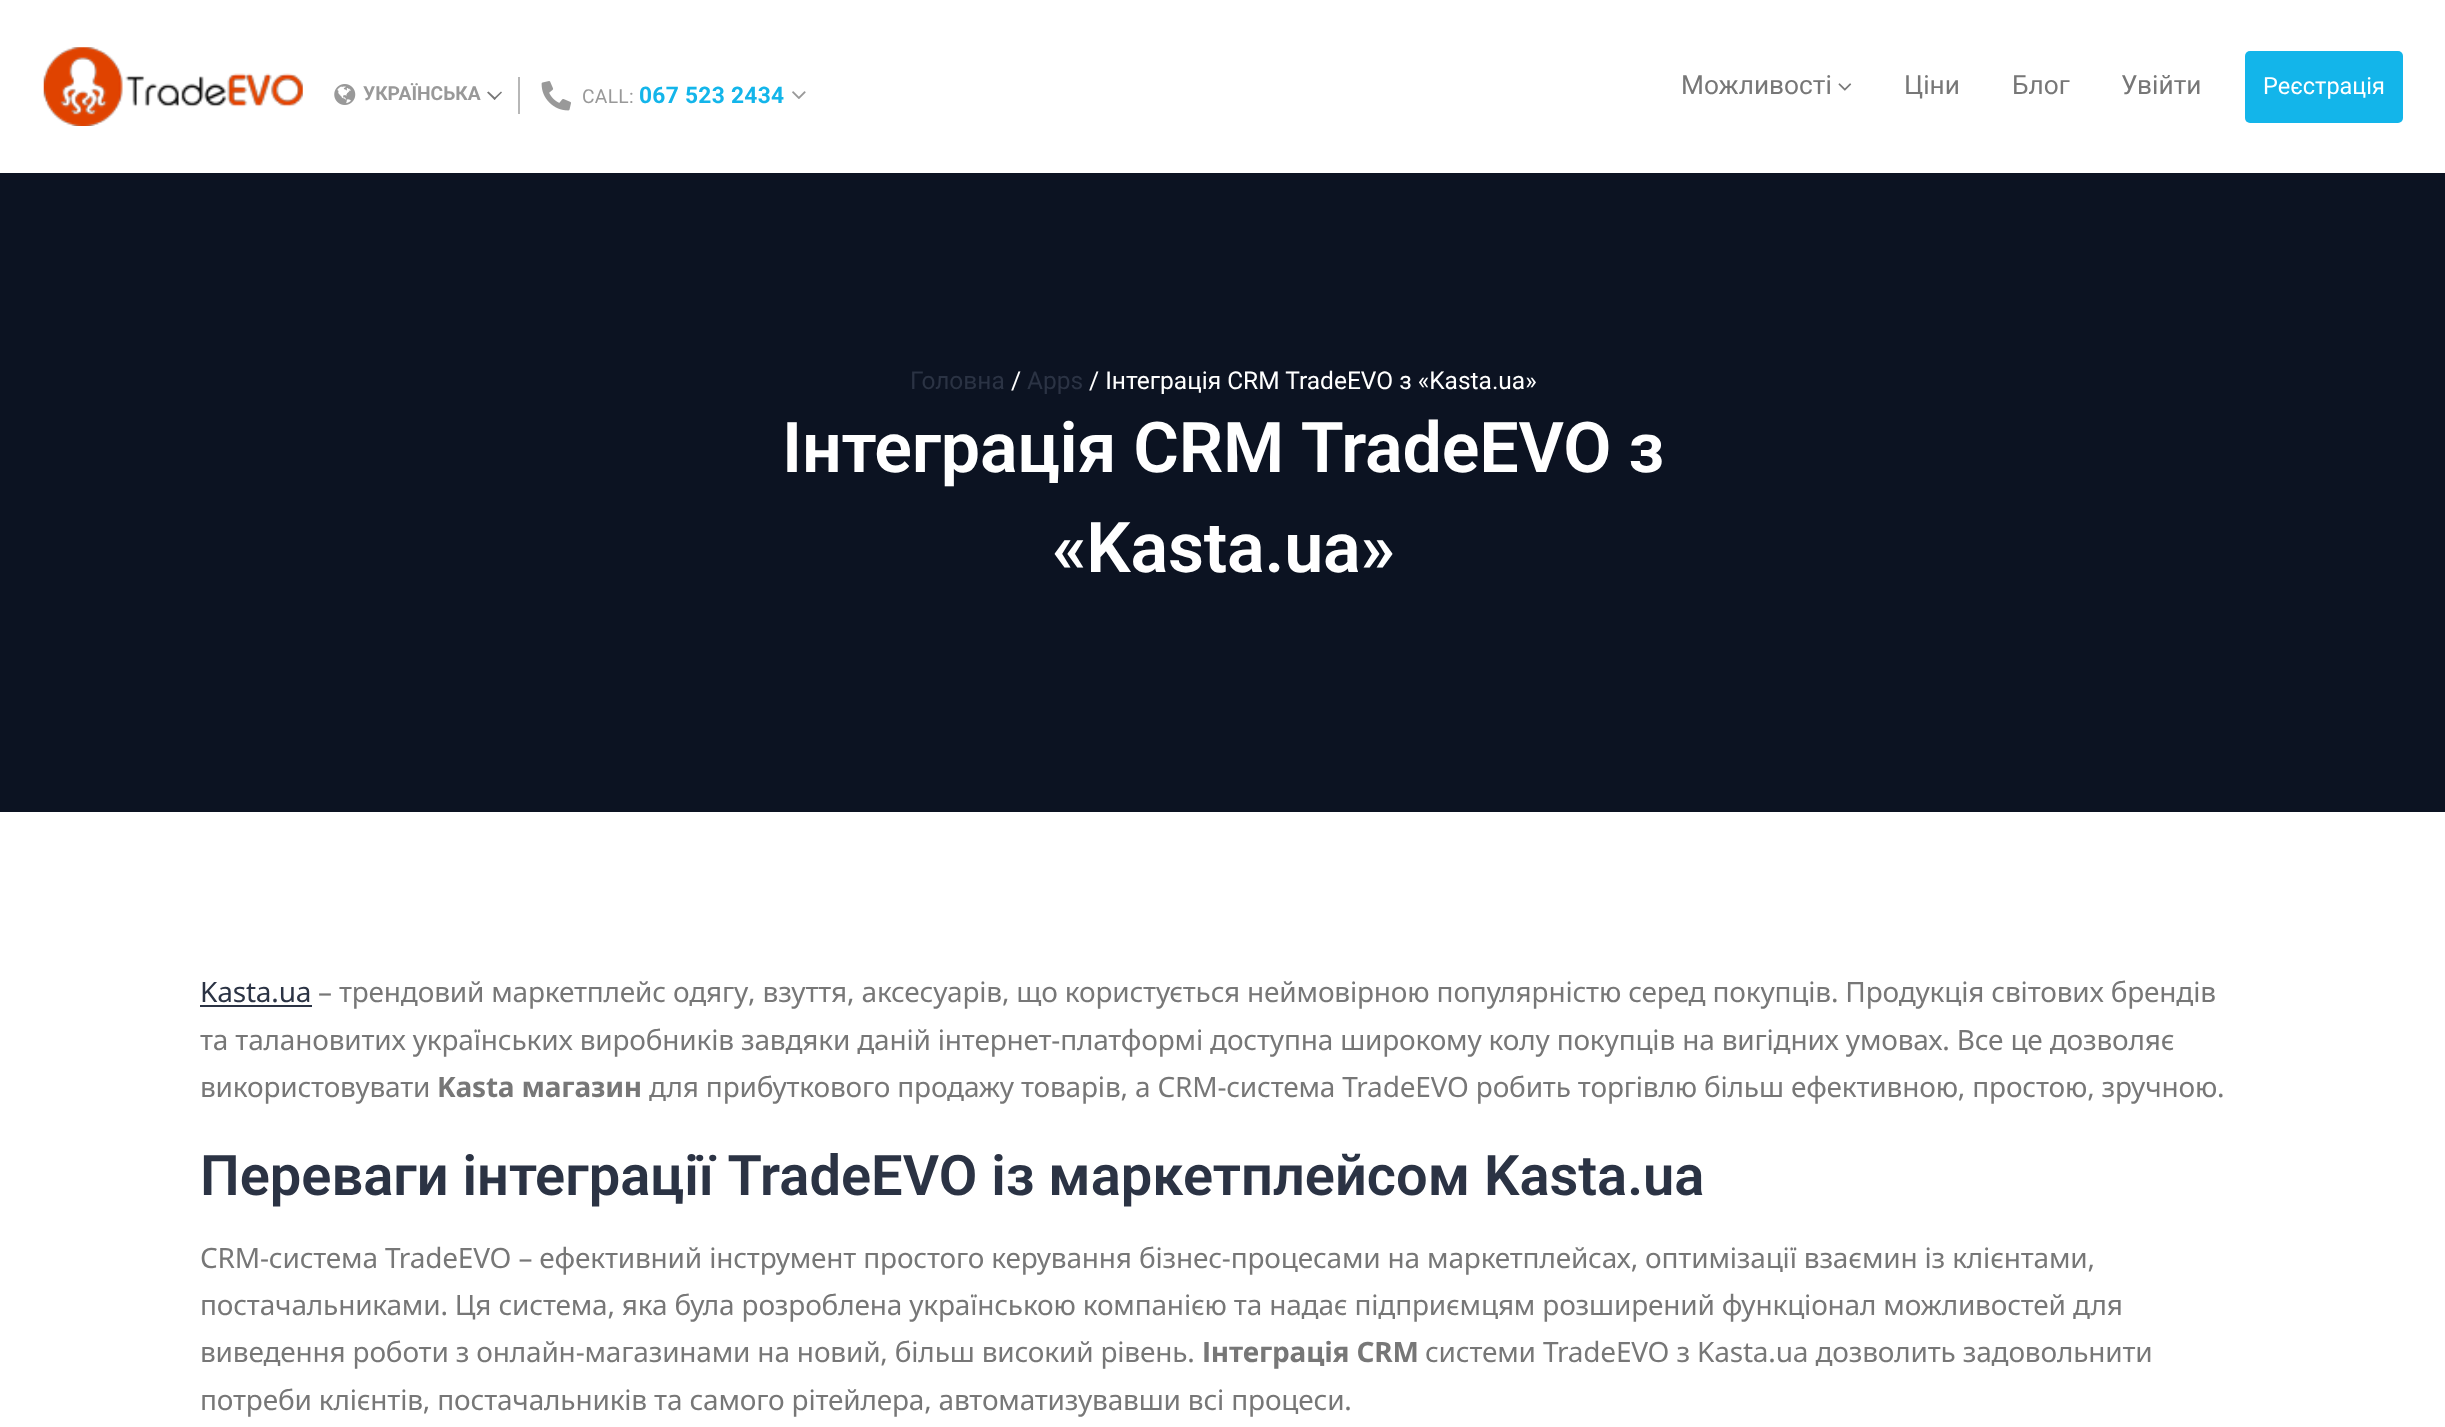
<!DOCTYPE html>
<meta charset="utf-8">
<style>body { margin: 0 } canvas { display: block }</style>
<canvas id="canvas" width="2445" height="1427"></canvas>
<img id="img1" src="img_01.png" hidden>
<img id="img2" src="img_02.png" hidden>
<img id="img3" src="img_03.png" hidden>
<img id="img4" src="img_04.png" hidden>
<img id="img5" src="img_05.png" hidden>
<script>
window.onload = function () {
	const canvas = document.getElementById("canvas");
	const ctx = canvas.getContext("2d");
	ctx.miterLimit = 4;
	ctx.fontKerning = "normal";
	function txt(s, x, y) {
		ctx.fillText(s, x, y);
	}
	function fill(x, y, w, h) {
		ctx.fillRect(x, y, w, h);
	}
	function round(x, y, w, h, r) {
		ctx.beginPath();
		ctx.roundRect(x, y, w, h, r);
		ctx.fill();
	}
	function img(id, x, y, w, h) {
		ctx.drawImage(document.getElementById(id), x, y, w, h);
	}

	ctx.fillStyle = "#FFFFFF";
	fill(0, 0, 2445, 1427);
	img("img1", 43, 47, 260, 79);
	img("img2", 334, 84, 22, 21);
	ctx.fillStyle = "#777777";
	ctx.beginPath();
	ctx.moveTo(501, 91.5);
	ctx.lineTo(502, 92.5);
	ctx.lineTo(494.5, 100);
	ctx.lineTo(493.5, 98.5);
	ctx.closePath();
	ctx.fill();
	ctx.beginPath();
	ctx.moveTo(488.5, 91.5);
	ctx.lineTo(496, 98.5);
	ctx.lineTo(494.5, 100);
	ctx.lineTo(487, 92.5);
	ctx.closePath();
	ctx.fill();
	ctx.fillStyle = "#B7B7B7";
	fill(518, 77, 2, 37);
	img("img3", 541, 81, 30, 30);
	img("img4", 792, 91, 14, 8);
	img("img5", 1838, 83, 14, 8);
	ctx.fillStyle = "#13B5EA";
	round(2245, 51, 158, 72, 5);
	ctx.fillStyle = "#0C1322";
	fill(0, 173, 2445, 639);
	ctx.fillStyle = "#2B3344";
	fill(200, 1005, 112, 2);
	ctx.font = "bold 19.25px Roboto";
	ctx.fillStyle = "#999999";
	txt("УКРАЇНСЬКА", 363, 100);
	ctx.letterSpacing = "0.3px";
	ctx.font = "19.25px Roboto";
	txt("CALL:", 582, 103);
	ctx.font = "bold 22.75px Roboto";
	ctx.fillStyle = "#13B5EA";
	txt("067 523 2434", 639, 103);
	ctx.letterSpacing = "0px";
	ctx.font = "26.25px Roboto";
	ctx.fillStyle = "#777777";
	txt("Можливості", 1681, 94);
	txt("Ціни", 1904, 94);
	txt("Блог", 2012, 94);
	txt("Увійти", 2121, 94);
	ctx.font = "23.5px Roboto";
	ctx.fillStyle = "#FFFFFF";
	txt("Реєстрація", 2263, 94);
	ctx.font = "24.5px Roboto";
	ctx.fillStyle = "#2B3344";
	txt("Головна", 910, 389);
	ctx.fillStyle = "#FFFFFF";
	txt("/", 1011, 389);
	ctx.fillStyle = "#2B3344";
	txt("Apps", 1027, 389);
	ctx.fillStyle = "#FFFFFF";
	txt("/ Інтеграція CRM TradeEVO з «Kasta.ua»", 1089, 389);
	ctx.letterSpacing = "-0.18px";
	ctx.wordSpacing = "-0.5px";
	ctx.font = "600 70px Roboto";
	txt("Інтеграція CRM TradeEVO з", 782, 472);
	ctx.wordSpacing = "0px";
	txt("«Kasta.ua»", 1052, 572);
	ctx.font = "28px Noto Sans";
	ctx.fillStyle = "#2B3344";
	txt("Kasta.ua", 200, 1002);
	ctx.fillStyle = "#777777";
	txt("– трендовий маркетплейс одягу, взуття, аксесуарів, що користується неймовірною популярністю серед покупців. Продукція світових брендів", 318, 1002);
	txt("та талановитих українських виробників завдяки даній інтернет-платформі доступна широкому колу покупців на вигідних умовах. Все це дозволяє", 200, 1050);
	txt("використовувати", 200, 1097);
	ctx.font = "bold 28px Noto Sans";
	txt("Kasta магазин", 437, 1097);
	ctx.font = "28px Noto Sans";
	txt("для прибуткового продажу товарів, а CRM-система TradeEVO робить торгівлю більш ефективною, простою, зручною.", 649, 1097);
	ctx.letterSpacing = "0px";
	ctx.font = "600 56px Roboto";
	ctx.fillStyle = "#2B3344";
	txt("Переваги інтеграції TradeEVO із маркетплейсом Kasta.ua", 200, 1195);
	ctx.letterSpacing = "-0.18px";
	ctx.font = "28px Noto Sans";
	ctx.fillStyle = "#777777";
	txt("CRM-система TradeEVO – ефективний інструмент простого керування бізнес-процесами на маркетплейсах, оптимізації взаємин із клієнтами,", 200, 1268);
	txt("постачальниками. Ця система, яка була розроблена українською компанією та надає підприємцям розширений функціонал можливостей для", 200, 1315);
	txt("виведення роботи з онлайн-магазинами на новий, більш високий рівень.", 200, 1362);
	ctx.font = "bold 28px Noto Sans";
	txt("Інтеграція CRM", 1202, 1362);
	ctx.font = "28px Noto Sans";
	txt("системи TradeEVO з Kasta.ua дозволить задовольнити", 1425, 1362);
	txt("потреби клієнтів, постачальників та самого рітейлера, автоматизувавши всі процеси.", 200, 1410);
};
</script>
